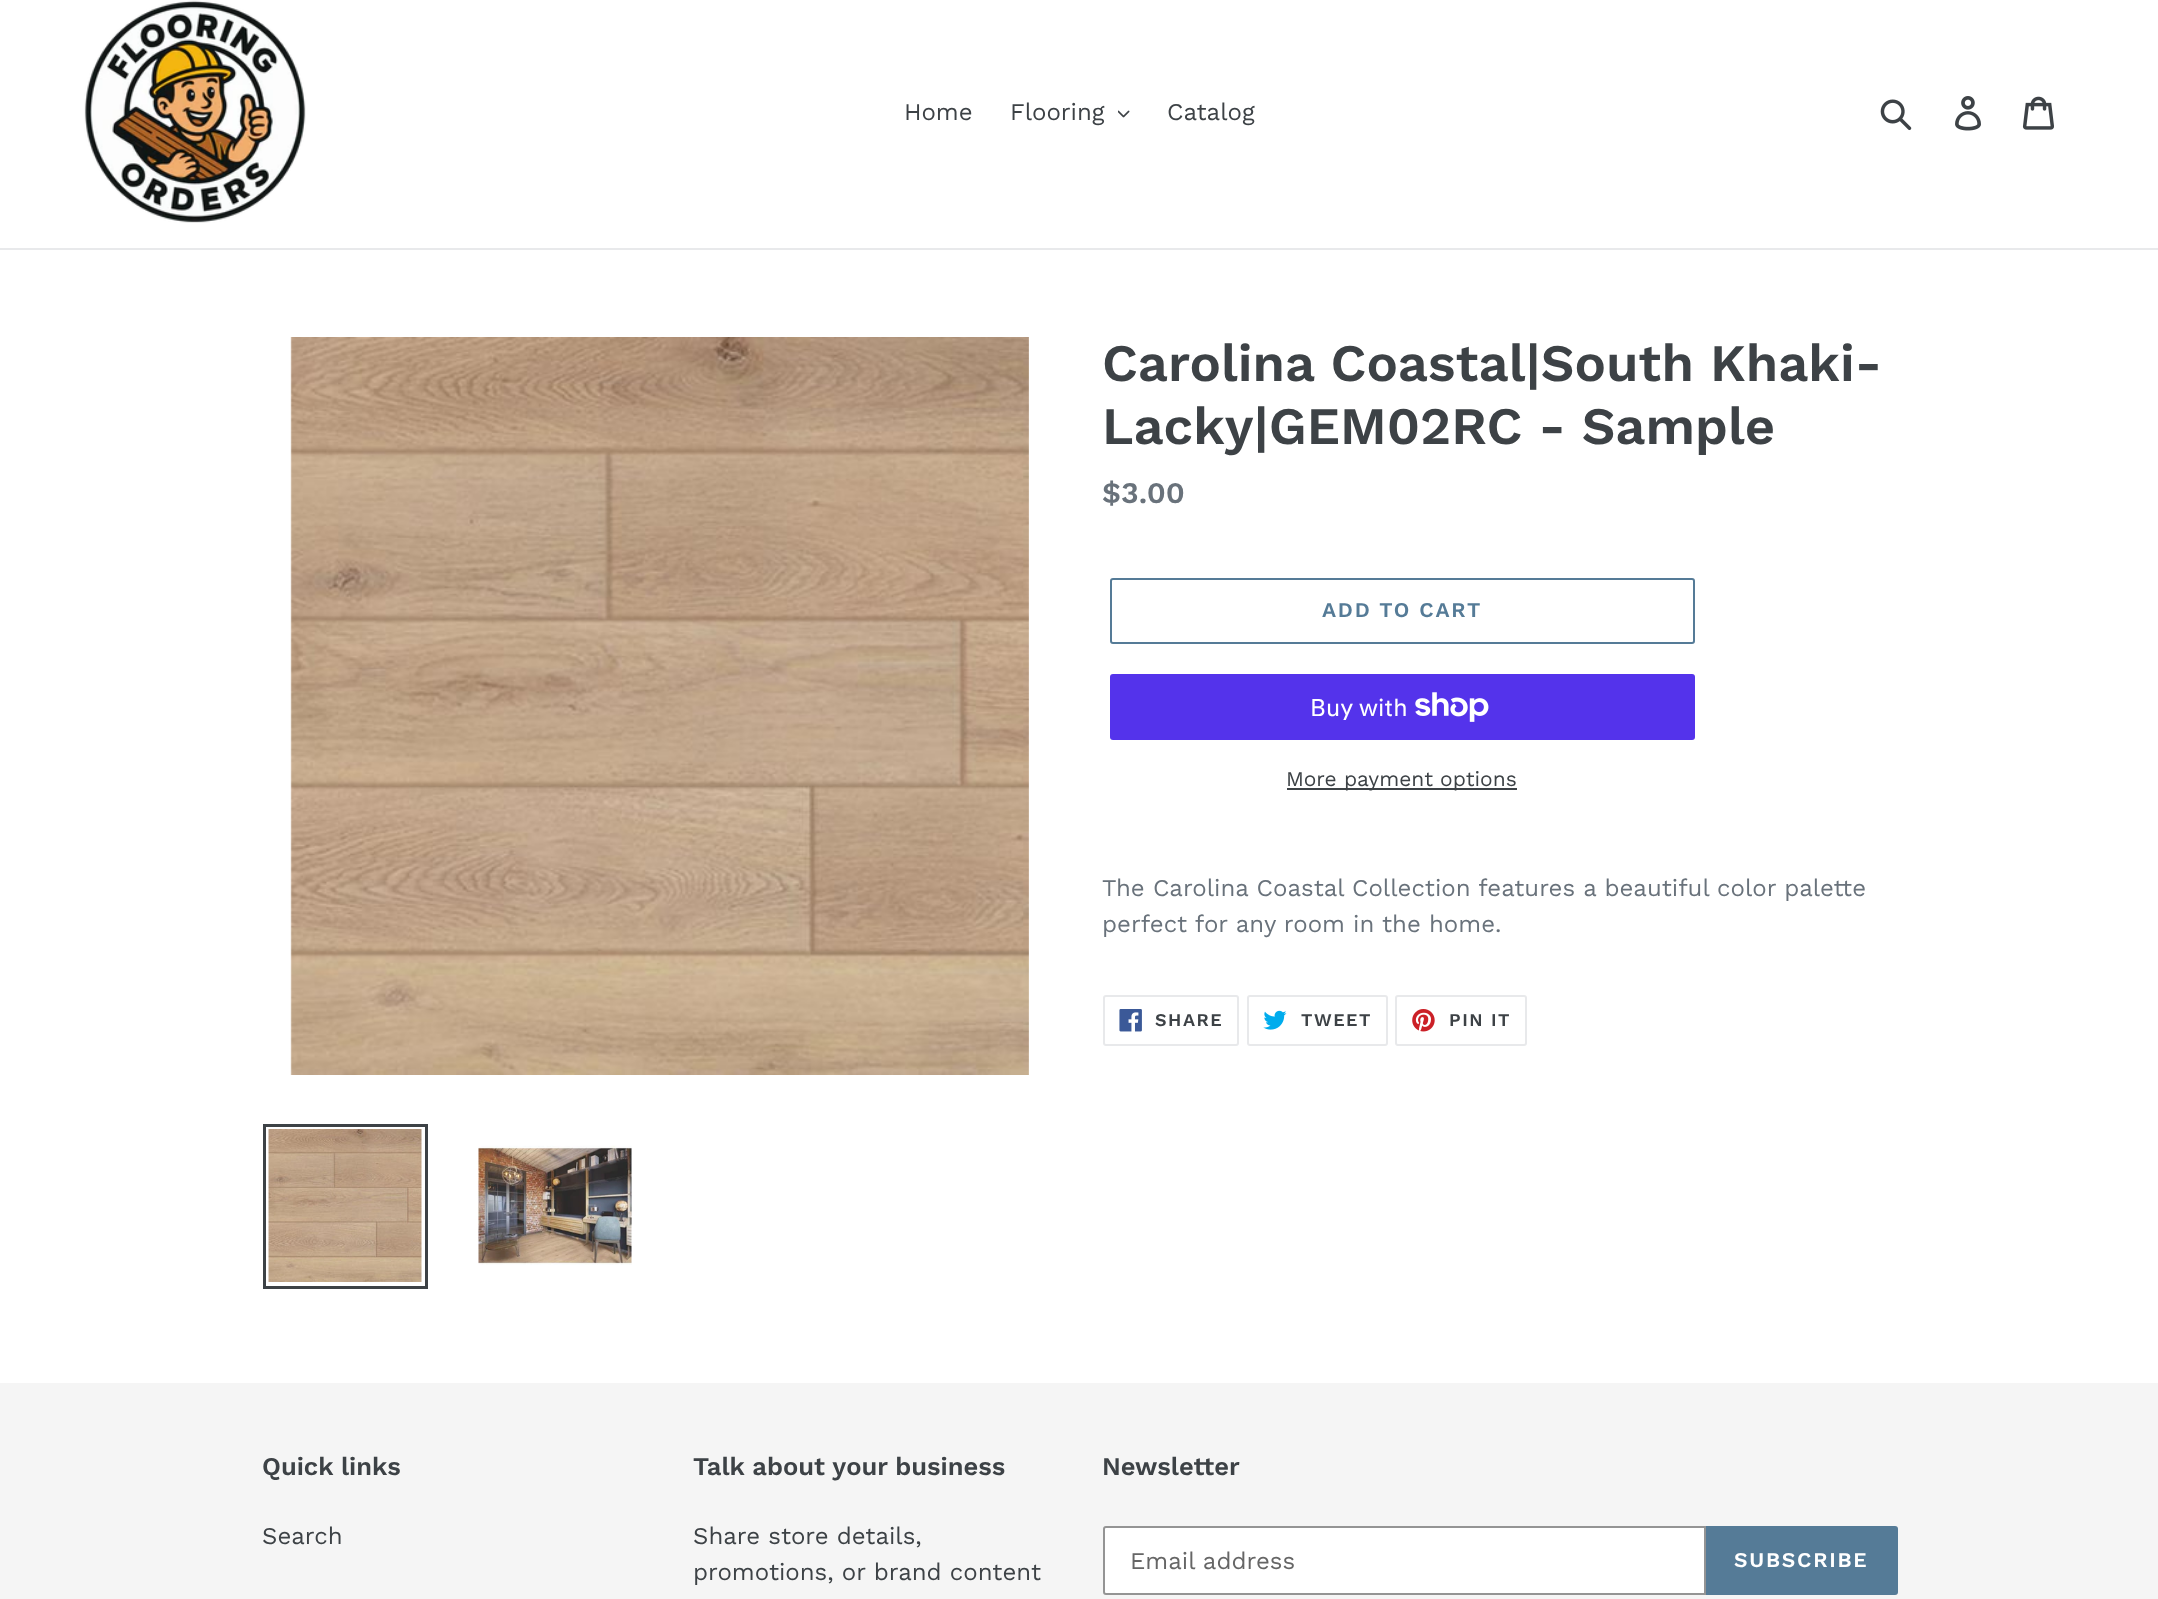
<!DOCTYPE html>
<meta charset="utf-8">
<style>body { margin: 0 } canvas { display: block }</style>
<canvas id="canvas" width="2158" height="1599"></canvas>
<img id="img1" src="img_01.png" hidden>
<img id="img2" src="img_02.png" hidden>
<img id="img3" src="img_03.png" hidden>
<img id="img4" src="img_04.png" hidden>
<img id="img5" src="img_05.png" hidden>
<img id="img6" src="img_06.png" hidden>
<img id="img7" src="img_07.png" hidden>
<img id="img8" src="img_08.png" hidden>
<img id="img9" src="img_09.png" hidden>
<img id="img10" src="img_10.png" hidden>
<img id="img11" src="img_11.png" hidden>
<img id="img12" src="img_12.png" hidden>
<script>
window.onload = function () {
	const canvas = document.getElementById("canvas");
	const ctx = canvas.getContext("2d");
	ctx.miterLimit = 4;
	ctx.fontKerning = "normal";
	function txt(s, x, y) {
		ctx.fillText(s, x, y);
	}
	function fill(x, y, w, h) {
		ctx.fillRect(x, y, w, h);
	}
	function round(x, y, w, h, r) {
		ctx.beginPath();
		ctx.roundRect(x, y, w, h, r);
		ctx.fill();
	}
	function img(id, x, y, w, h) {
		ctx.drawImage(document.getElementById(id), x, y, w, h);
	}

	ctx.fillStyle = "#FFFFFF";
	fill(0, 0, 2158, 1599);
	ctx.fillStyle = "#E8E9EB";
	fill(0, 248, 2158, 2);
	img("img1", 84, 0, 222, 223);
	img("img2", 1118, 110, 12, 8);
	img("img3", 1880, 99, 32, 32);
	img("img4", 1955, 96, 26, 35);
	img("img5", 2022, 96, 32, 34);
	img("img6", 290, 337, 739, 738);
	ctx.strokeStyle = "#3D4246";
	ctx.lineWidth = 3;
	ctx.strokeRect(264.5, 1125.5, 162, 162);
	img("img7", 268, 1129, 154, 153);
	img("img8", 478, 1145, 154, 120);
	ctx.beginPath();
	ctx.roundRect(1111, 579, 583, 64, 2);
	ctx.strokeStyle = "#557B97";
	ctx.lineWidth = 2;
	ctx.stroke();
	ctx.fillStyle = "#5433EB";
	round(1110, 674, 585, 66, 3);
	img("img9", 1415, 692, 74, 30);
	ctx.fillStyle = "#3D4246";
	fill(1287, 788, 230, 2);
	ctx.beginPath();
	ctx.roundRect(1104, 996, 134, 49, 2);
	ctx.strokeStyle = "#E8E9EB";
	ctx.stroke();
	img("img10", 1119, 1009, 23, 23);
	ctx.beginPath();
	ctx.roundRect(1248, 996, 139, 49, 2);
	ctx.stroke();
	img("img11", 1263, 1010, 24, 20);
	ctx.beginPath();
	ctx.roundRect(1396, 996, 130, 49, 2);
	ctx.stroke();
	img("img12", 1412, 1009, 23, 23);
	ctx.fillStyle = "#F5F5F5";
	fill(0, 1383, 2158, 216);
	ctx.fillStyle = "#FFFFFF";
	ctx.beginPath();
	ctx.roundRect(1104, 1527, 601, 67, [2, 0, 0, 2]);
	ctx.fill();
	ctx.strokeStyle = "#949494";
	ctx.stroke();
	ctx.fillStyle = "#557B97";
	ctx.beginPath();
	ctx.roundRect(1706, 1526, 192, 69, [0, 3, 3, 0]);
	ctx.fill();
	ctx.font = "24px Work Sans";
	ctx.fillStyle = "#3D4246";
	txt("Home", 904, 120);
	txt("Flooring", 1010, 120);
	txt("Catalog", 1167, 120);
	ctx.font = "600 52.5px Work Sans";
	txt("Carolina Coastal|South Khaki-", 1102, 381);
	txt("Lacky|GEM02RC - Sample", 1102, 444);
	ctx.font = "600 30px Work Sans";
	ctx.fillStyle = "#69727B";
	txt("$3.00", 1102, 503);
	ctx.letterSpacing = "1.75px";
	ctx.font = "600 21px Work Sans";
	ctx.fillStyle = "#557B97";
	txt("ADD TO CART", 1322, 617);
	ctx.letterSpacing = "0px";
	ctx.font = "24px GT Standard";
	ctx.fillStyle = "#FFFFFF";
	txt("Buy with", 1310, 716);
	ctx.font = "21px Work Sans";
	ctx.fillStyle = "#3D4246";
	txt("More payment options", 1286, 786);
	ctx.font = "24px Work Sans";
	ctx.fillStyle = "#69727B";
	txt("The Carolina Coastal Collection features a beautiful color palette", 1102, 896);
	txt("perfect for any room in the home.", 1102, 932);
	ctx.letterSpacing = "1.5px";
	ctx.font = "600 18px Work Sans";
	ctx.fillStyle = "#3D4246";
	txt("SHARE", 1155, 1026);
	txt("TWEET", 1301, 1026);
	txt("PIN IT", 1449, 1026);
	ctx.letterSpacing = "0px";
	ctx.font = "600 25.5px Work Sans";
	txt("Quick links", 262, 1475);
	ctx.font = "24px Work Sans";
	txt("Search", 262, 1544);
	ctx.font = "600 25.5px Work Sans";
	txt("Talk about your business", 693, 1475);
	ctx.font = "24px Work Sans";
	txt("Share store details,", 693, 1544);
	txt("promotions, or brand content", 693, 1580);
	ctx.font = "600 25.5px Work Sans";
	txt("Newsletter", 1102, 1475);
	ctx.font = "24px Work Sans";
	ctx.fillStyle = "#666666";
	txt("Email address", 1130, 1569);
	ctx.letterSpacing = "1.75px";
	ctx.font = "600 21px Work Sans";
	ctx.fillStyle = "#FFFFFF";
	txt("SUBSCRIBE", 1734, 1567);
};
</script>
